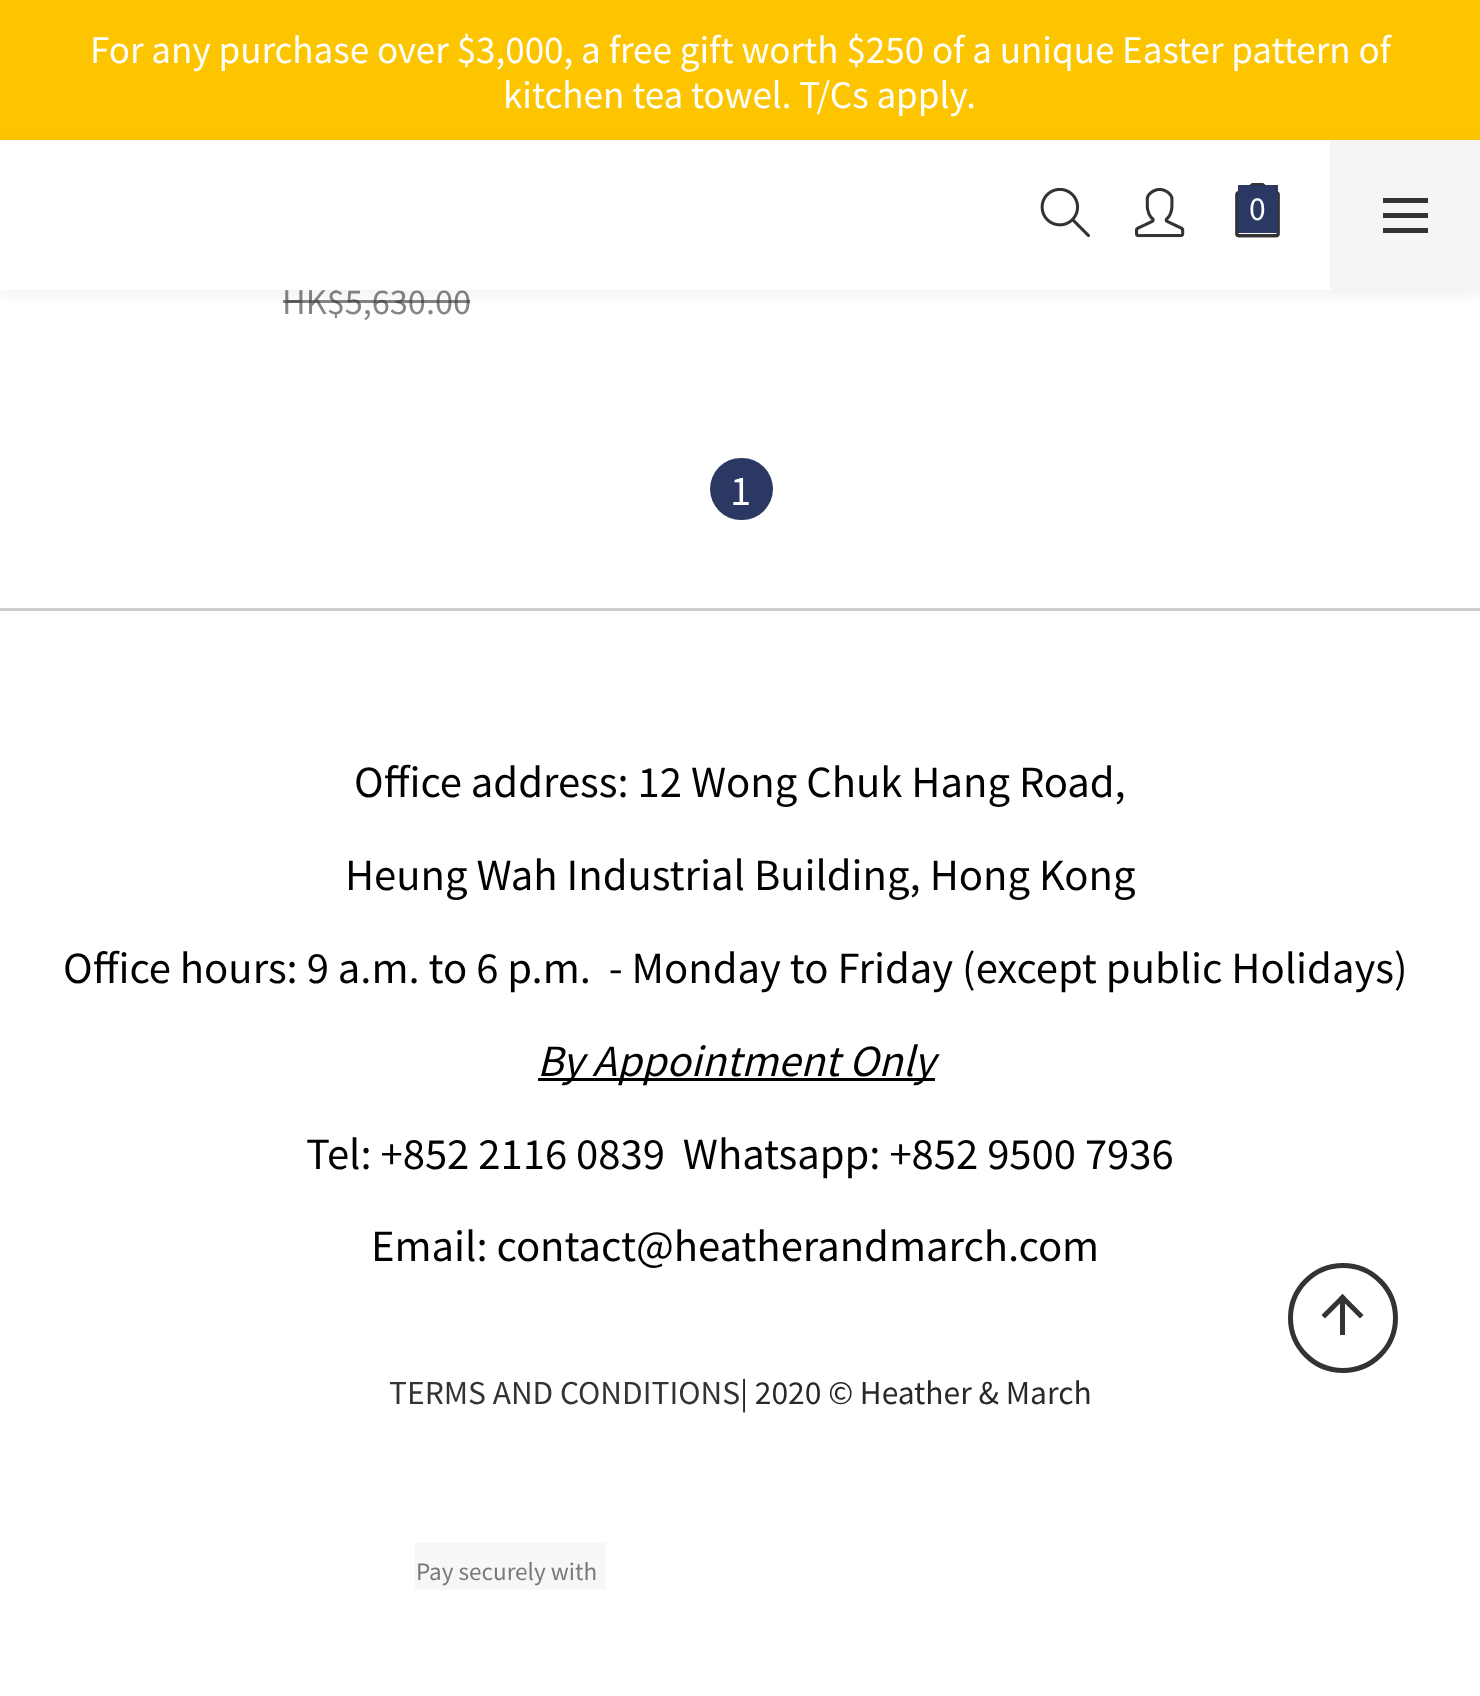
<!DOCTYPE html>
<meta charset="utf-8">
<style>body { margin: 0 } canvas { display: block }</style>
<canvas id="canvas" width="1480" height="1696"></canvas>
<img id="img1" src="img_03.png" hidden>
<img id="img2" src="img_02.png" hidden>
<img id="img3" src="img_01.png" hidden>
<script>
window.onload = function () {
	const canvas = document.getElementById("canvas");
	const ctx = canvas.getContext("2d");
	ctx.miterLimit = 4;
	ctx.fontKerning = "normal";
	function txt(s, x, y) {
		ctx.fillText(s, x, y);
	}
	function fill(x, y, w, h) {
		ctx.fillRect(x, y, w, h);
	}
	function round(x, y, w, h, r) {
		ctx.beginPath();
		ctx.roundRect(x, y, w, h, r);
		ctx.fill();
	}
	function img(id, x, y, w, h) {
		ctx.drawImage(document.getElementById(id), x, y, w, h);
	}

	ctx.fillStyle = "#FFFFFF";
	fill(0, 0, 1480, 1696);
	ctx.fillStyle = "#FDC500";
	fill(0, 0, 1480, 140);
	ctx.fillStyle = "#2B3864";
	round(710, 458, 63, 62, 31);
	ctx.fillStyle = "#CCCCCC";
	fill(0, 608, 1480, 3);
	ctx.fillStyle = "#010101";
	fill(538, 1078, 397, 3);
	ctx.fillStyle = "#F7F7F7";
	fill(415, 1543, 191, 47);
	ctx.beginPath();
	ctx.arc(1343, 1318, 52.5, 0, Math.PI * 2);
	ctx.strokeStyle = "#333333";
	ctx.lineWidth = 5;
	ctx.stroke();
	ctx.fillStyle = "#333333";
	ctx.beginPath();
	ctx.moveTo(1342.5, 1294);
	ctx.lineTo(1363.5, 1315);
	ctx.lineTo(1360, 1318.5);
	ctx.lineTo(1339, 1297.5);
	ctx.closePath();
	ctx.fill();
	ctx.beginPath();
	ctx.moveTo(1342.5, 1294);
	ctx.lineTo(1346, 1297.5);
	ctx.lineTo(1325, 1318.5);
	ctx.lineTo(1321.5, 1315);
	ctx.closePath();
	ctx.fill();
	fill(1340, 1300, 5, 35);
	ctx.font = "35px Noto Sans TC";
	ctx.fillStyle = "#FFFFFF";
	txt("For any purchase over $3,000, a free gift worth $250 of a unique Easter pattern of", 90, 63);
	txt("kitchen tea towel. T/Cs apply.", 503, 108);
	ctx.font = "32.5px Noto Sans TC";
	ctx.fillStyle = "#858585";
	txt("HK$5,630.00", 282, 314);
	ctx.fillStyle = "rgba(51, 51, 51, 0.6)";
	fill(283, 300, 187, 3);
	ctx.fillStyle = "rgba(0, 0, 0, 0.06)";
	ctx.filter = "blur(7.5px)";
	ctx.beginPath();
	ctx.rect(0, 145, 1480, 150);
	ctx.fill();
	ctx.filter = "none";
	ctx.fillStyle = "#F5F5F5";
	fill(1330, 140, 150, 150);
	ctx.fillStyle = "#333333";
	fill(1383, 228, 45, 5);
	fill(1383, 198, 45, 5);
	fill(1383, 213, 45, 5);
	ctx.fillStyle = "#FFFFFF";
	fill(0, 140, 1330, 150);
	img("img1", 1235, 183, 45, 55);
	ctx.fillStyle = "#2B3864";
	fill(1238, 185, 40, 48);
	ctx.font = "30px Noto Sans TC";
	ctx.fillStyle = "#FFFFFF";
	txt("0", 1249, 220);
	img("img2", 1135, 188, 50, 50);
	img("img3", 1040, 188, 50, 50);
	ctx.font = "38px Noto Sans TC";
	txt("1", 730, 505);
	ctx.font = "40px Noto Sans TC";
	ctx.fillStyle = "#010101";
	txt("Office address: 12 Wong Chuk Hang Road,", 354, 797);
	txt("Heung Wah Industrial Building, Hong Kong", 345, 890);
	txt("Office hours: 9 a.m. to 6 p.m.  - Monday to Friday (except public Holidays)", 63, 983);
	ctx.font = "italic 40px Noto Sans TC";
	txt("By Appointment Only", 537, 1076);
	ctx.font = "40px Noto Sans TC";
	txt("Tel: +852 2116 0839  Whatsapp: +852 9500 7936", 306, 1169);
	txt("Email: contact@heatherandmarch.com", 371, 1261);
	ctx.font = "30px Noto Sans TC";
	ctx.fillStyle = "#333333";
	txt("TERMS AND CONDITIONS", 389, 1404);
	ctx.fillStyle = "#2A2727";
	txt("| 2020 © Heather & March", 740, 1404);
	ctx.font = "22.5px Noto Sans TC";
	ctx.fillStyle = "#7A7979";
	txt("Pay securely with", 416, 1580);
};
</script>
